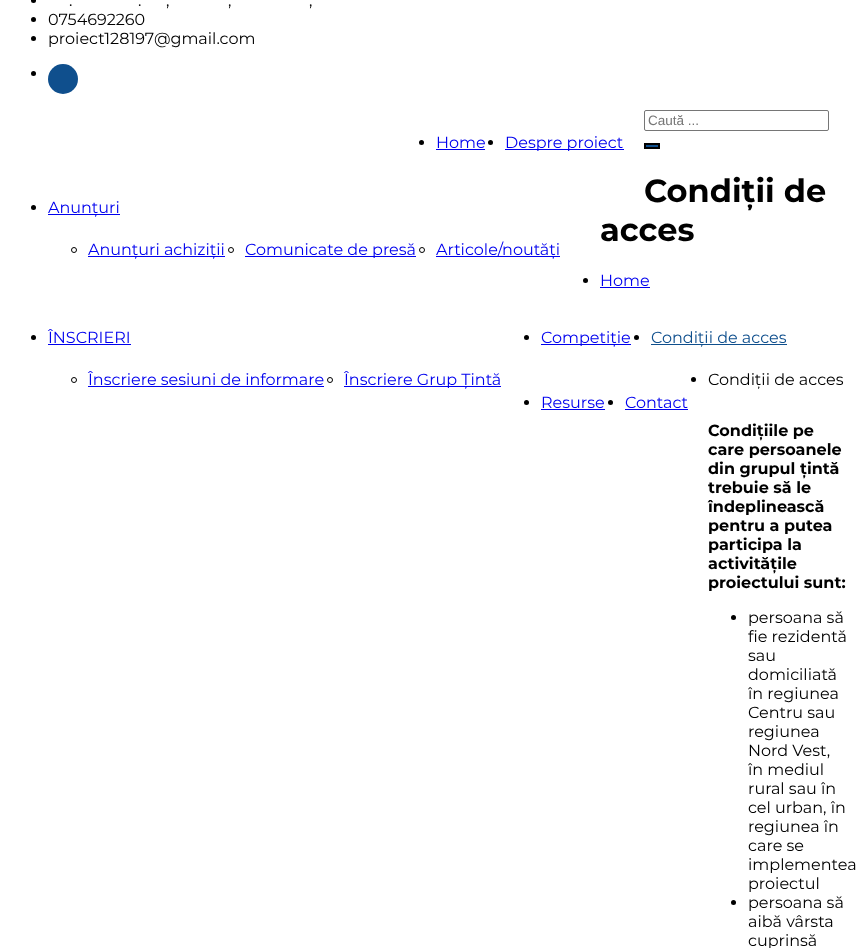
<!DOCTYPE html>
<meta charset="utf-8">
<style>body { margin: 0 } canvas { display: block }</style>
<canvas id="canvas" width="856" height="948"></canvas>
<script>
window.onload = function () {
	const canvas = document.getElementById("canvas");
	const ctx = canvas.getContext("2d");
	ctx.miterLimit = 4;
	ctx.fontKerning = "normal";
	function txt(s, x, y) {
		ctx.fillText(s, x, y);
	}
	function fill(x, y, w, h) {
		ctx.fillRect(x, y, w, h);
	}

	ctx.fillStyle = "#FFFFFF";
	fill(0, 0, 856, 948);
	ctx.fillStyle = "#000000";
	ctx.beginPath();
	ctx.arc(33.5, 0.5, 2.5, 0, Math.PI * 2);
	ctx.fill();
	ctx.beginPath();
	ctx.arc(33.5, 19.5, 2.5, 0, Math.PI * 2);
	ctx.fill();
	ctx.beginPath();
	ctx.arc(33.5, 38.5, 2.5, 0, Math.PI * 2);
	ctx.fill();
	ctx.beginPath();
	ctx.arc(33.5, 73.5, 2.5, 0, Math.PI * 2);
	ctx.fill();
	ctx.fillStyle = "#0F4F8D";
	ctx.beginPath();
	ctx.arc(63, 79, 15, 0, Math.PI * 2);
	ctx.fill();
	ctx.beginPath();
	ctx.roundRect(644.5, 110.5, 184, 20, 1.5);
	ctx.strokeStyle = "#767676";
	ctx.stroke();
	ctx.beginPath();
	ctx.rect(645, 144, 14, 4);
	ctx.fill();
	ctx.strokeStyle = "#000000";
	ctx.lineWidth = 2;
	ctx.stroke();
	ctx.fillStyle = "#000000";
	ctx.beginPath();
	ctx.arc(421.5, 142.5, 2.5, 0, Math.PI * 2);
	ctx.fill();
	ctx.fillStyle = "#0000EE";
	fill(436, 149, 49, 1);
	ctx.fillStyle = "#000000";
	ctx.beginPath();
	ctx.arc(490.5, 142.5, 2.5, 0, Math.PI * 2);
	ctx.fill();
	ctx.fillStyle = "#0000EE";
	fill(505, 149, 119, 1);
	ctx.fillStyle = "#000000";
	ctx.beginPath();
	ctx.arc(33.5, 207.5, 2.5, 0, Math.PI * 2);
	ctx.fill();
	ctx.fillStyle = "#0000EE";
	fill(48, 214, 72, 1);
	ctx.beginPath();
	ctx.arc(74, 250, 2.5, 0, Math.PI * 2);
	ctx.lineWidth = 1;
	ctx.stroke();
	fill(88, 256, 137, 1);
	ctx.beginPath();
	ctx.arc(231, 250, 2.5, 0, Math.PI * 2);
	ctx.stroke();
	fill(245, 256, 171, 1);
	ctx.beginPath();
	ctx.arc(422, 250, 2.5, 0, Math.PI * 2);
	ctx.stroke();
	fill(436, 256, 124, 1);
	ctx.fillStyle = "#000000";
	ctx.beginPath();
	ctx.arc(33.5, 337.5, 2.5, 0, Math.PI * 2);
	ctx.fill();
	ctx.fillStyle = "#0000EE";
	fill(48, 344, 83, 1);
	ctx.beginPath();
	ctx.arc(74, 380, 2.5, 0, Math.PI * 2);
	ctx.stroke();
	fill(88, 386, 236, 1);
	ctx.beginPath();
	ctx.arc(330, 380, 2.5, 0, Math.PI * 2);
	ctx.stroke();
	fill(344, 386, 157, 1);
	ctx.fillStyle = "#000000";
	ctx.beginPath();
	ctx.arc(526.5, 337.5, 2.5, 0, Math.PI * 2);
	ctx.fill();
	ctx.fillStyle = "#0000EE";
	fill(541, 344, 90, 1);
	ctx.fillStyle = "#000000";
	ctx.beginPath();
	ctx.arc(636.5, 337.5, 2.5, 0, Math.PI * 2);
	ctx.fill();
	ctx.fillStyle = "#0F4F8D";
	fill(651, 344, 136, 1);
	ctx.fillStyle = "#000000";
	ctx.beginPath();
	ctx.arc(526.5, 402.5, 2.5, 0, Math.PI * 2);
	ctx.fill();
	ctx.fillStyle = "#0000EE";
	fill(541, 409, 64, 1);
	ctx.fillStyle = "#000000";
	ctx.beginPath();
	ctx.arc(610.5, 402.5, 2.5, 0, Math.PI * 2);
	ctx.fill();
	ctx.fillStyle = "#0000EE";
	fill(625, 409, 63, 1);
	ctx.fillStyle = "#000000";
	ctx.beginPath();
	ctx.arc(585.5, 280.5, 2.5, 0, Math.PI * 2);
	ctx.fill();
	ctx.fillStyle = "#0000EE";
	fill(600, 287, 50, 1);
	ctx.fillStyle = "#000000";
	ctx.beginPath();
	ctx.arc(693.5, 379.5, 2.5, 0, Math.PI * 2);
	ctx.fill();
	ctx.beginPath();
	ctx.arc(733.5, 617.5, 2.5, 0, Math.PI * 2);
	ctx.fill();
	ctx.beginPath();
	ctx.arc(733.5, 902.5, 2.5, 0, Math.PI * 2);
	ctx.fill();
	ctx.font = "16px Montserrat";
	txt(".", 69, 6);
	txt(".", 138, 6);
	txt(",", 166, 6);
	txt(",", 228, 6);
	txt(",", 309, 6);
	txt("0754692260", 48, 25);
	txt("proiect128197@gmail.com", 48, 44);
	ctx.font = "13.5px Liberation Sans";
	ctx.fillStyle = "#757575";
	txt("Caută ...", 648, 125);
	ctx.font = "16px Montserrat";
	ctx.fillStyle = "#0000EE";
	txt("Home", 436, 148);
	txt("Despre proiect", 505, 148);
	txt("Anunțuri", 48, 213);
	txt("Anunțuri achiziții", 88, 255);
	txt("Comunicate de presă", 245, 255);
	txt("Articole/noutăți", 436, 255);
	txt("ÎNSCRIERI", 48, 343);
	txt("Înscriere sesiuni de informare", 88, 385);
	txt("Înscriere Grup Țintă", 344, 385);
	txt("Competiție", 541, 343);
	ctx.fillStyle = "#0F4F8D";
	txt("Condiții de acces", 651, 343);
	ctx.fillStyle = "#0000EE";
	txt("Resurse", 541, 408);
	txt("Contact", 625, 408);
	ctx.font = "bold 32px Montserrat";
	ctx.fillStyle = "#000000";
	txt("Condiții de", 644, 202);
	txt("acces", 600, 241);
	ctx.font = "16px Montserrat";
	ctx.fillStyle = "#0000EE";
	txt("Home", 600, 286);
	ctx.fillStyle = "#000000";
	txt("Condiții de acces", 708, 385);
	ctx.font = "bold 16px Montserrat";
	txt("Condițiile pe", 708, 436);
	txt("care persoanele", 708, 455);
	txt("din grupul țintă", 708, 474);
	txt("trebuie să le", 708, 493);
	txt("îndeplinească", 708, 512);
	txt("pentru a putea", 708, 531);
	txt("participa la", 708, 550);
	txt("activitățile", 708, 569);
	txt("proiectului sunt:", 708, 588);
	ctx.font = "16px Montserrat";
	txt("persoana să", 748, 623);
	txt("fie rezidentă", 748, 642);
	txt("sau", 748, 661);
	txt("domiciliată", 748, 680);
	txt("în regiunea", 748, 699);
	txt("Centru sau", 748, 718);
	txt("regiunea", 748, 737);
	txt("Nord Vest,", 748, 756);
	txt("în mediul", 748, 775);
	txt("rural sau în", 748, 794);
	txt("cel urban, în", 748, 813);
	txt("regiunea în", 748, 832);
	txt("care se", 748, 851);
	txt("implementea", 748, 870);
	txt("proiectul", 748, 889);
	txt("persoana să", 748, 908);
	txt("aibă vârsta", 748, 927);
	txt("cuprinsă", 748, 946);
};
</script>
